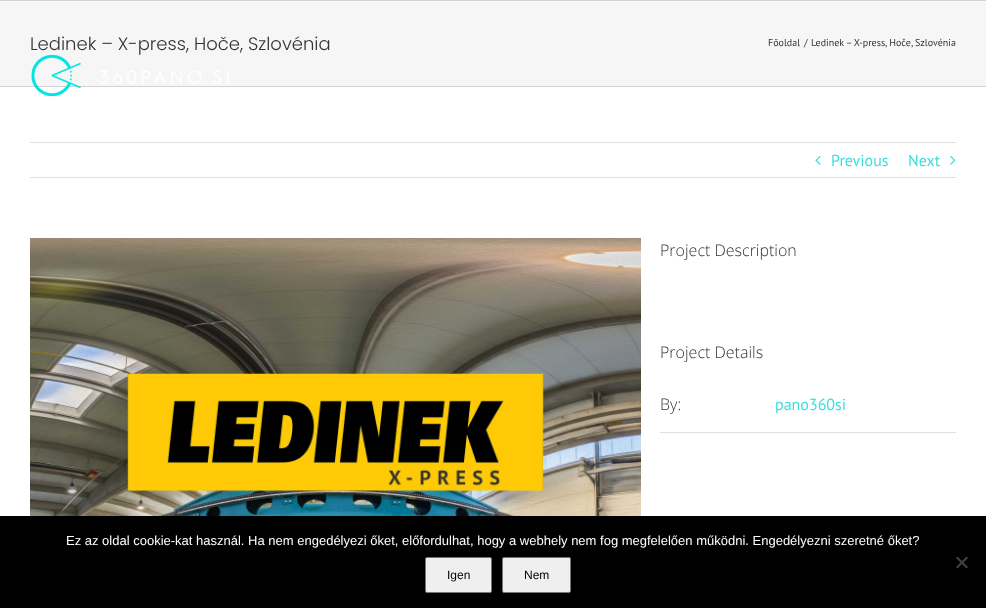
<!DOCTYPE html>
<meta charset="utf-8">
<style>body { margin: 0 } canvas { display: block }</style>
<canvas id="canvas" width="986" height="608"></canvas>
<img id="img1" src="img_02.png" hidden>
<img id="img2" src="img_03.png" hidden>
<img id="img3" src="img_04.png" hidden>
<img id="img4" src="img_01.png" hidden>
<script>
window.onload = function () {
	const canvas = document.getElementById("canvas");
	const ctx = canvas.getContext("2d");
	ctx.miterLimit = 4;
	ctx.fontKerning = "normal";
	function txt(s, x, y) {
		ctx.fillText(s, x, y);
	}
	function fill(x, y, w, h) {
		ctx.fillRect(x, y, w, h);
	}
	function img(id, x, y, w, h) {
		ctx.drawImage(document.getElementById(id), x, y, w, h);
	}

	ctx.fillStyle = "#FFFFFF";
	fill(0, 0, 986, 608);
	ctx.fillStyle = "#F6F6F6";
	fill(0, 1, 986, 85);
	ctx.fillStyle = "#D2D3D4";
	fill(0, 0, 986, 1);
	fill(0, 86, 986, 1);
	ctx.fillStyle = "#E0DEDE";
	fill(30, 142, 926, 1);
	fill(30, 177, 926, 1);
	img("img1", 815, 156, 6, 9);
	img("img2", 950, 156, 6, 9);
	img("img3", 30, 238, 611, 278);
	fill(660, 432, 296, 1);
	ctx.fillStyle = "#000000";
	fill(0, 516, 986, 92);
	ctx.fillStyle = "#404040";
	ctx.beginPath();
	ctx.moveTo(966.5, 556.5);
	ctx.lineTo(968, 558);
	ctx.lineTo(957.5, 568.5);
	ctx.lineTo(956, 567);
	ctx.closePath();
	ctx.fill();
	ctx.beginPath();
	ctx.moveTo(956, 558);
	ctx.lineTo(957.5, 556.5);
	ctx.lineTo(968, 567);
	ctx.lineTo(966.5, 568.5);
	ctx.closePath();
	ctx.fill();
	ctx.fillStyle = "#EFEFEF";
	ctx.beginPath();
	ctx.roundRect(425.5, 557.5, 66, 35, 1.5);
	ctx.fill();
	ctx.strokeStyle = "#767676";
	ctx.stroke();
	ctx.beginPath();
	ctx.roundRect(502.5, 557.5, 68, 35, 1.5);
	ctx.fill();
	ctx.stroke();
	ctx.font = "300 18px Poppins";
	ctx.fillStyle = "#333333";
	txt("Ledinek – X-press, Hoče, Szlovénia", 30, 50);
	ctx.font = "10px PT Sans";
	txt("Főoldal", 768, 46);
	txt("/", 804, 46);
	txt("Ledinek – X-press, Hoče, Szlovénia", 811, 46);
	img("img4", 31, 54, 198, 43);
	ctx.font = "16px PT Sans";
	ctx.fillStyle = "#3ADEDD";
	txt("Previous", 831, 166);
	txt("Next", 908, 166);
	ctx.font = "300 16px Open Sans";
	ctx.fillStyle = "#333333";
	txt("Project Description", 660, 256);
	txt("Project Details", 660, 358);
	txt("By:", 660, 410);
	ctx.font = "16px PT Sans";
	ctx.fillStyle = "#3ADEDD";
	txt("pano360si", 775, 410);
	ctx.font = "13px Liberation Sans";
	ctx.fillStyle = "#FFFFFF";
	txt("Ez az oldal cookie-kat használ. Ha nem engedélyezi őket, előfordulhat, hogy a webhely nem fog megfelelően működni. Engedélyezni szeretné őket?", 66, 545);
	ctx.font = "12px Liberation Sans";
	ctx.fillStyle = "#000000";
	txt("Igen", 447, 579);
	txt("Nem", 524, 579);
};
</script>
